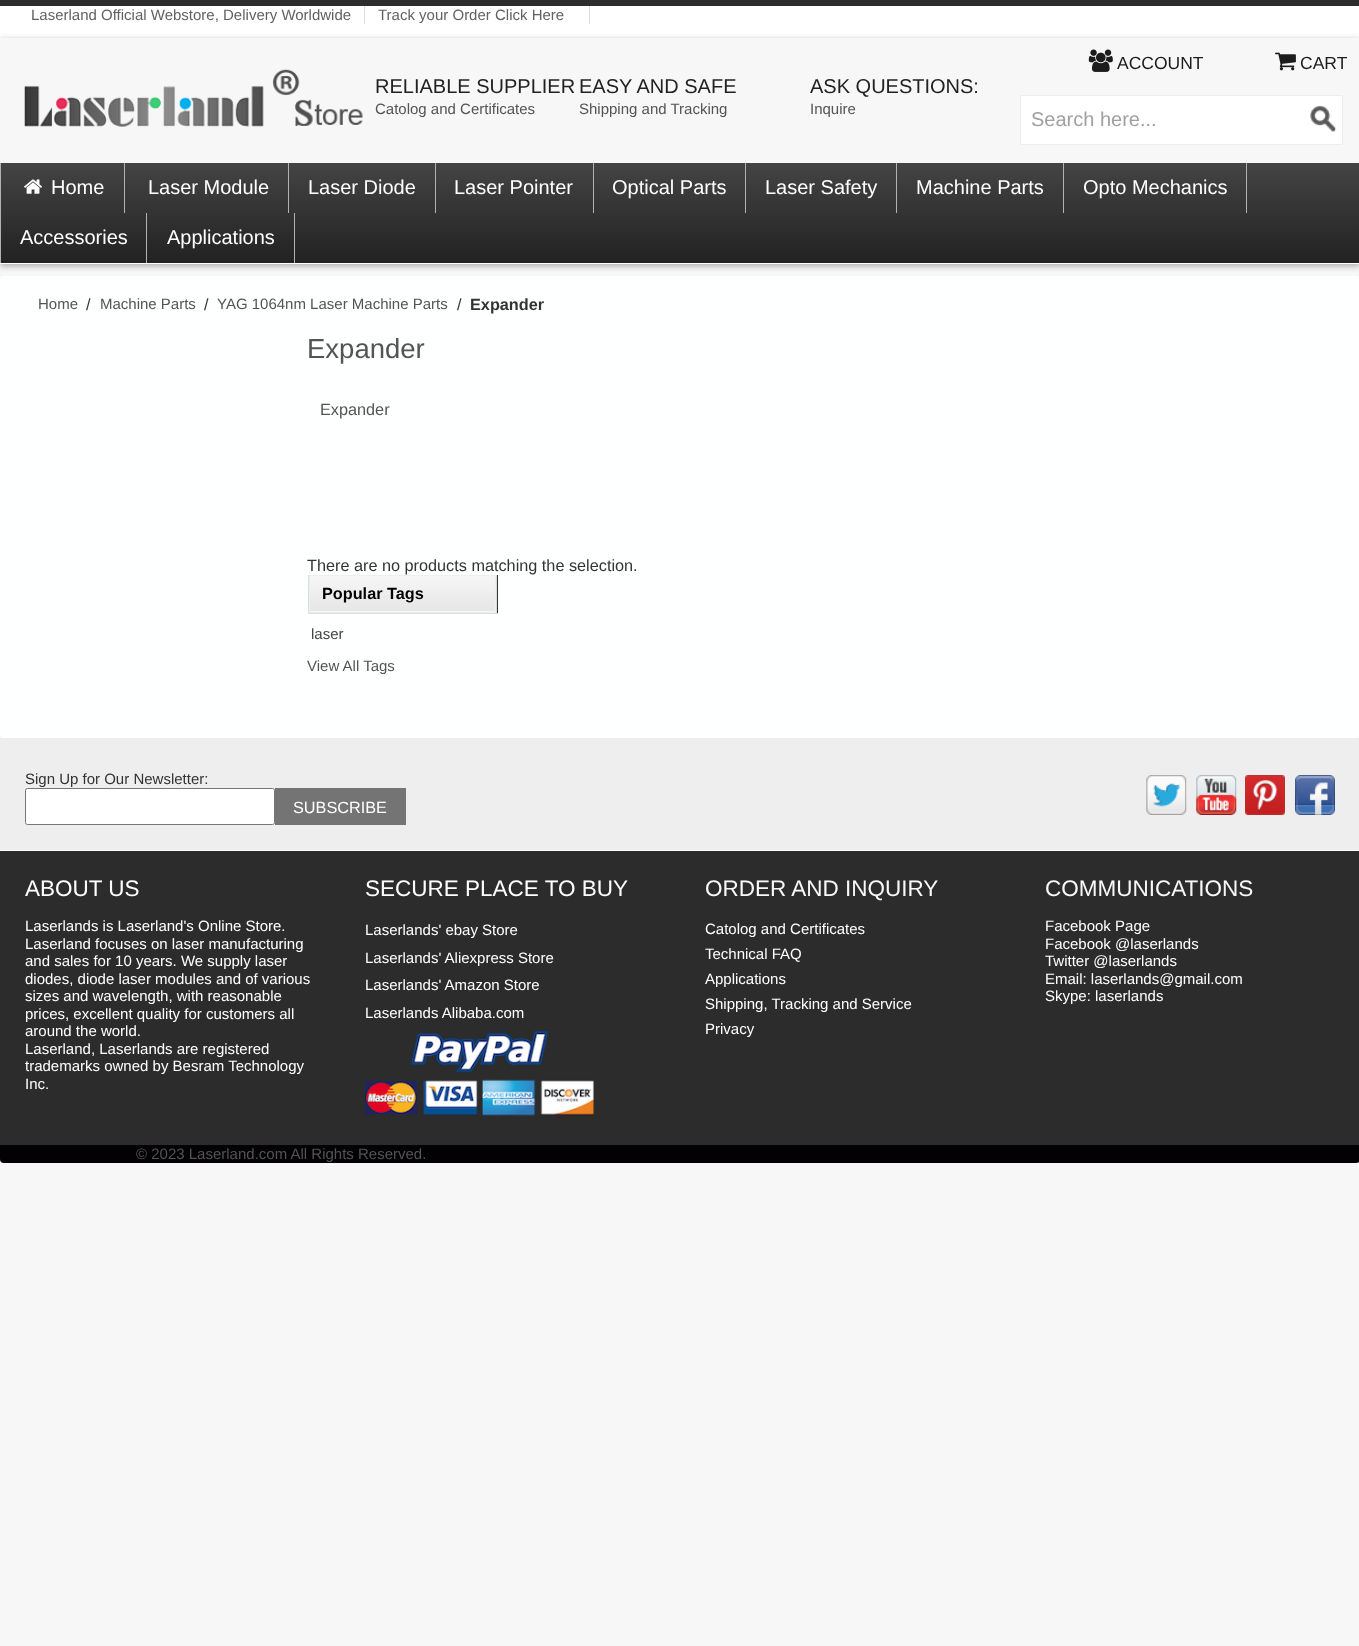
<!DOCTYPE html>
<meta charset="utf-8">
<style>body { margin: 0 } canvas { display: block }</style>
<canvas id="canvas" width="1359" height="1646"></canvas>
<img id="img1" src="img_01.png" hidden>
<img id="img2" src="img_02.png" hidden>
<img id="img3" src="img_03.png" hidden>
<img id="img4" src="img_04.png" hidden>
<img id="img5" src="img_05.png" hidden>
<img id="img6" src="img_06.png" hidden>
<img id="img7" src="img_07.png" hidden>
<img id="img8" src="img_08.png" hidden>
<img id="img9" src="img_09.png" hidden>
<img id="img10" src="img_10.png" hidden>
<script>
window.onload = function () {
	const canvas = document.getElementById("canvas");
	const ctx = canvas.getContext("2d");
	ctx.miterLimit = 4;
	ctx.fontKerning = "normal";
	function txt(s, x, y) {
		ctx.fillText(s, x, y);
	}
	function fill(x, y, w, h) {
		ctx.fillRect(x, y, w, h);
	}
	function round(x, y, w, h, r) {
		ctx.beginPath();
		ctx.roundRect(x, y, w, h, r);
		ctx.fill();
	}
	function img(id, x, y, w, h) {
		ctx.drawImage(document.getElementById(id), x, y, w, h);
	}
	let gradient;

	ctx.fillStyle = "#F7F7F7";
	fill(0, 0, 1359, 1646);
	ctx.fillStyle = "#FFFFFF";
	fill(0, 6, 1359, 32);
	ctx.fillStyle = "#2D2D2D";
	fill(0, 0, 1359, 6);
	ctx.fillStyle = "#DDDDDD";
	fill(364, 6, 1, 18);
	fill(589, 6, 1, 18);
	ctx.save();
	ctx.beginPath();
	ctx.moveTo(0, 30);
	ctx.lineTo(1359, 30);
	ctx.lineTo(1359, 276);
	ctx.lineTo(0, 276);
	ctx.closePath();
	ctx.moveTo(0, 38);
	ctx.lineTo(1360, 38);
	ctx.lineTo(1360, 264);
	ctx.lineTo(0, 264);
	ctx.closePath();
	ctx.clip("evenodd");
	ctx.fillStyle = "#AAAAAA";
	ctx.filter = "blur(3px)";
	ctx.beginPath();
	ctx.rect(0, 40, 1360, 226);
	ctx.fill();
	ctx.filter = "none";
	ctx.restore();
	ctx.fillStyle = "#FEFFFF";
	fill(0, 263, 1359, 1);
	img("img1", 1088, 49, 25, 23);
	img("img2", 1275, 52, 21, 19);
	img("img3", 24, 69, 339, 58);
	ctx.fillStyle = "#FFFFFF";
	ctx.beginPath();
	ctx.rect(1020.5, 95.5, 322, 49);
	ctx.fill();
	ctx.strokeStyle = "#ECEDEC";
	ctx.stroke();
	img("img4", 1310, 105, 27, 27);
	gradient = ctx.createLinearGradient(0, 163, 0, 263);
	gradient.addColorStop(0, "#444444");
	gradient.addColorStop(1, "#222222");
	ctx.fillStyle = gradient;
	fill(1, 163, 1358, 100);
	ctx.fillStyle = "#B2B2B2";
	fill(0, 163, 1, 100);
	fill(124, 163, 1, 50);
	img("img5", 24, 179, 18, 15);
	fill(288, 163, 1, 50);
	fill(435, 163, 1, 50);
	fill(593, 163, 1, 50);
	fill(745, 163, 1, 50);
	fill(896, 163, 1, 50);
	fill(1063, 163, 1, 50);
	fill(1246, 163, 1, 50);
	fill(146, 213, 1, 50);
	fill(294, 213, 1, 50);
	ctx.fillStyle = "#FEFFFF";
	round(0, 276, 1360, 462, 4);
	ctx.fillStyle = "#333333";
	fill(497, 575, 1, 38);
	ctx.fillStyle = "#DDDDDD";
	fill(496, 575, 1, 39);
	fill(308, 613, 190, 1);
	fill(308, 575, 1, 39);
	gradient = ctx.createLinearGradient(310, 576, 310, 611);
	gradient.addColorStop(0, "#F6F6F6");
	gradient.addColorStop(1, "#E6E6E6");
	ctx.fillStyle = gradient;
	fill(310, 576, 185, 35);
	gradient = ctx.createLinearGradient(310, 611, 310, 646);
	gradient.addColorStop(0, "#F6F6F6");
	gradient.addColorStop(1, "#E6E6E6");
	ctx.fillStyle = gradient;
	fill(309, 611, 187, 1);
	ctx.strokeStyle = "#EEEEEE";
	ctx.strokeRect(309.5, 575.5, 186, 37);
	ctx.fillStyle = "#040105";
	round(0, 738, 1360, 425, 4);
	ctx.fillStyle = "#EEEEEE";
	fill(0, 738, 1359, 112);
	ctx.fillStyle = "#FEFFFF";
	fill(0, 850, 1359, 1);
	ctx.fillStyle = "#FFFFFF";
	ctx.beginPath();
	ctx.roundRect(25.5, 788.5, 249, 36, 2);
	ctx.fill();
	ctx.strokeStyle = "#767676";
	ctx.stroke();
	ctx.fillStyle = "#747474";
	fill(275, 788, 131, 37);
	img("img6", 1146, 775, 41, 40);
	img("img7", 1196, 775, 41, 40);
	img("img8", 1245, 775, 40, 40);
	img("img9", 1295, 775, 40, 40);
	ctx.fillStyle = "#2C2C2C";
	fill(0, 851, 1359, 294);
	img("img10", 365, 1030, 229, 86);
	ctx.font = "15px Liberation Sans";
	ctx.fillStyle = "#626262";
	txt("Laserland Official Webstore, Delivery Worldwide", 31, 20);
	txt("Track your Order Click Here", 378, 20);
	ctx.font = "17.5px Liberation Sans";
	ctx.fillStyle = "#1C1C1C";
	txt("ACCOUNT", 1117, 69);
	txt("CART", 1300, 69);
	ctx.font = "20px Liberation Sans";
	ctx.fillStyle = "#222222";
	txt("RELIABLE SUPPLIER", 375, 93);
	ctx.font = "15px Liberation Sans";
	ctx.fillStyle = "#545454";
	txt("Catolog and Certificates", 375, 114);
	ctx.font = "20px Liberation Sans";
	ctx.fillStyle = "#222222";
	txt("EASY AND SAFE", 579, 93);
	ctx.font = "15px Liberation Sans";
	ctx.fillStyle = "#545454";
	txt("Shipping and Tracking", 579, 114);
	ctx.font = "20px Liberation Sans";
	ctx.fillStyle = "#222222";
	txt("ASK QUESTIONS:", 810, 93);
	ctx.font = "15px Liberation Sans";
	ctx.fillStyle = "#545454";
	txt("Inquire", 810, 114);
	ctx.font = "20px Liberation Sans";
	ctx.fillStyle = "#A0A0A0";
	txt("Search here...", 1031, 126);
	ctx.fillStyle = "#FFFFFF";
	txt("Home", 51, 194);
	txt("Laser Module", 148, 194);
	txt("Laser Diode", 308, 194);
	txt("Laser Pointer", 454, 194);
	txt("Optical Parts", 612, 194);
	txt("Laser Safety", 765, 194);
	txt("Machine Parts", 916, 194);
	txt("Opto Mechanics", 1083, 194);
	txt("Accessories", 20, 244);
	txt("Applications", 167, 244);
	ctx.font = "15px Liberation Sans";
	ctx.fillStyle = "#545454";
	txt("Home", 38, 309);
	ctx.font = "16.25px Liberation Sans";
	ctx.fillStyle = "#333333";
	txt("/", 86, 310);
	ctx.font = "15px Liberation Sans";
	ctx.fillStyle = "#545454";
	txt("Machine Parts", 100, 309);
	ctx.font = "16.25px Liberation Sans";
	ctx.fillStyle = "#333333";
	txt("/", 204, 310);
	ctx.font = "15px Liberation Sans";
	ctx.fillStyle = "#545454";
	txt("YAG 1064nm Laser Machine Parts", 217, 309);
	ctx.font = "16.25px Liberation Sans";
	ctx.fillStyle = "#333333";
	txt("/", 457, 310);
	ctx.font = "bold 16.25px Liberation Sans";
	txt("Expander", 470, 310);
	ctx.font = "27.5px Liberation Sans";
	ctx.fillStyle = "#545454";
	txt("Expander", 307, 358);
	ctx.font = "16.25px Liberation Sans";
	txt("Expander", 320, 415);
	ctx.fillStyle = "#333333";
	txt("There are no products matching the selection.", 307, 571);
	ctx.font = "bold 16.25px Liberation Sans";
	ctx.fillStyle = "#000000";
	txt("Popular Tags", 322, 599);
	ctx.font = "15px Liberation Sans";
	ctx.fillStyle = "#444444";
	txt("laser", 311, 639);
	ctx.fillStyle = "#545454";
	txt("View All Tags", 307, 671);
	ctx.fillStyle = "#333333";
	txt("Sign Up for Our Newsletter:", 25, 784);
	ctx.font = "16.25px Liberation Sans";
	ctx.fillStyle = "#FFFFFF";
	txt("SUBSCRIBE", 293, 813);
	ctx.font = "22.5px Liberation Sans";
	txt("ABOUT US", 25, 896);
	ctx.font = "15px Liberation Sans";
	txt("Laserlands is Laserland's Online Store.", 25, 931);
	txt("Laserland focuses on laser manufacturing", 25, 949);
	txt("and sales for 10 years. We supply laser", 25, 966);
	txt("diodes, diode laser modules and of various", 25, 984);
	txt("sizes and wavelength, with reasonable", 25, 1001);
	txt("prices, excellent quality for customers all", 25, 1019);
	txt("around the world.", 25, 1036);
	txt("Laserland, Laserlands are registered", 25, 1054);
	txt("trademarks owned by Besram Technology", 25, 1071);
	txt("Inc.", 25, 1089);
	ctx.font = "22.5px Liberation Sans";
	txt("SECURE PLACE TO BUY", 365, 896);
	ctx.font = "15px Liberation Sans";
	txt("Laserlands' ebay Store", 365, 935);
	txt("Laserlands' Aliexpress Store", 365, 963);
	txt("Laserlands' Amazon Store", 365, 990);
	txt("Laserlands Alibaba.com", 365, 1018);
	ctx.font = "22.5px Liberation Sans";
	ctx.fillStyle = "#F8F8F8";
	txt("ORDER AND INQUIRY", 705, 896);
	ctx.font = "15px Liberation Sans";
	ctx.fillStyle = "#FFFFFF";
	txt("Catolog and Certificates", 705, 934);
	txt("Technical FAQ", 705, 959);
	txt("Applications", 705, 984);
	txt("Shipping, Tracking and Service", 705, 1009);
	txt("Privacy", 705, 1034);
	ctx.font = "22.5px Liberation Sans";
	ctx.fillStyle = "#F8F8F8";
	txt("COMMUNICATIONS", 1045, 896);
	ctx.font = "15px Liberation Sans";
	ctx.fillStyle = "#FFFFFF";
	txt("Facebook Page", 1045, 931);
	txt("Facebook @laserlands", 1045, 949);
	txt("Twitter @laserlands", 1045, 966);
	txt("Email: laserlands@gmail.com", 1045, 984);
	txt("Skype: laserlands", 1045, 1001);
	ctx.fillStyle = "#545454";
	txt("© 2023 Laserland.com All Rights Reserved.", 136, 1159);
};
</script>
